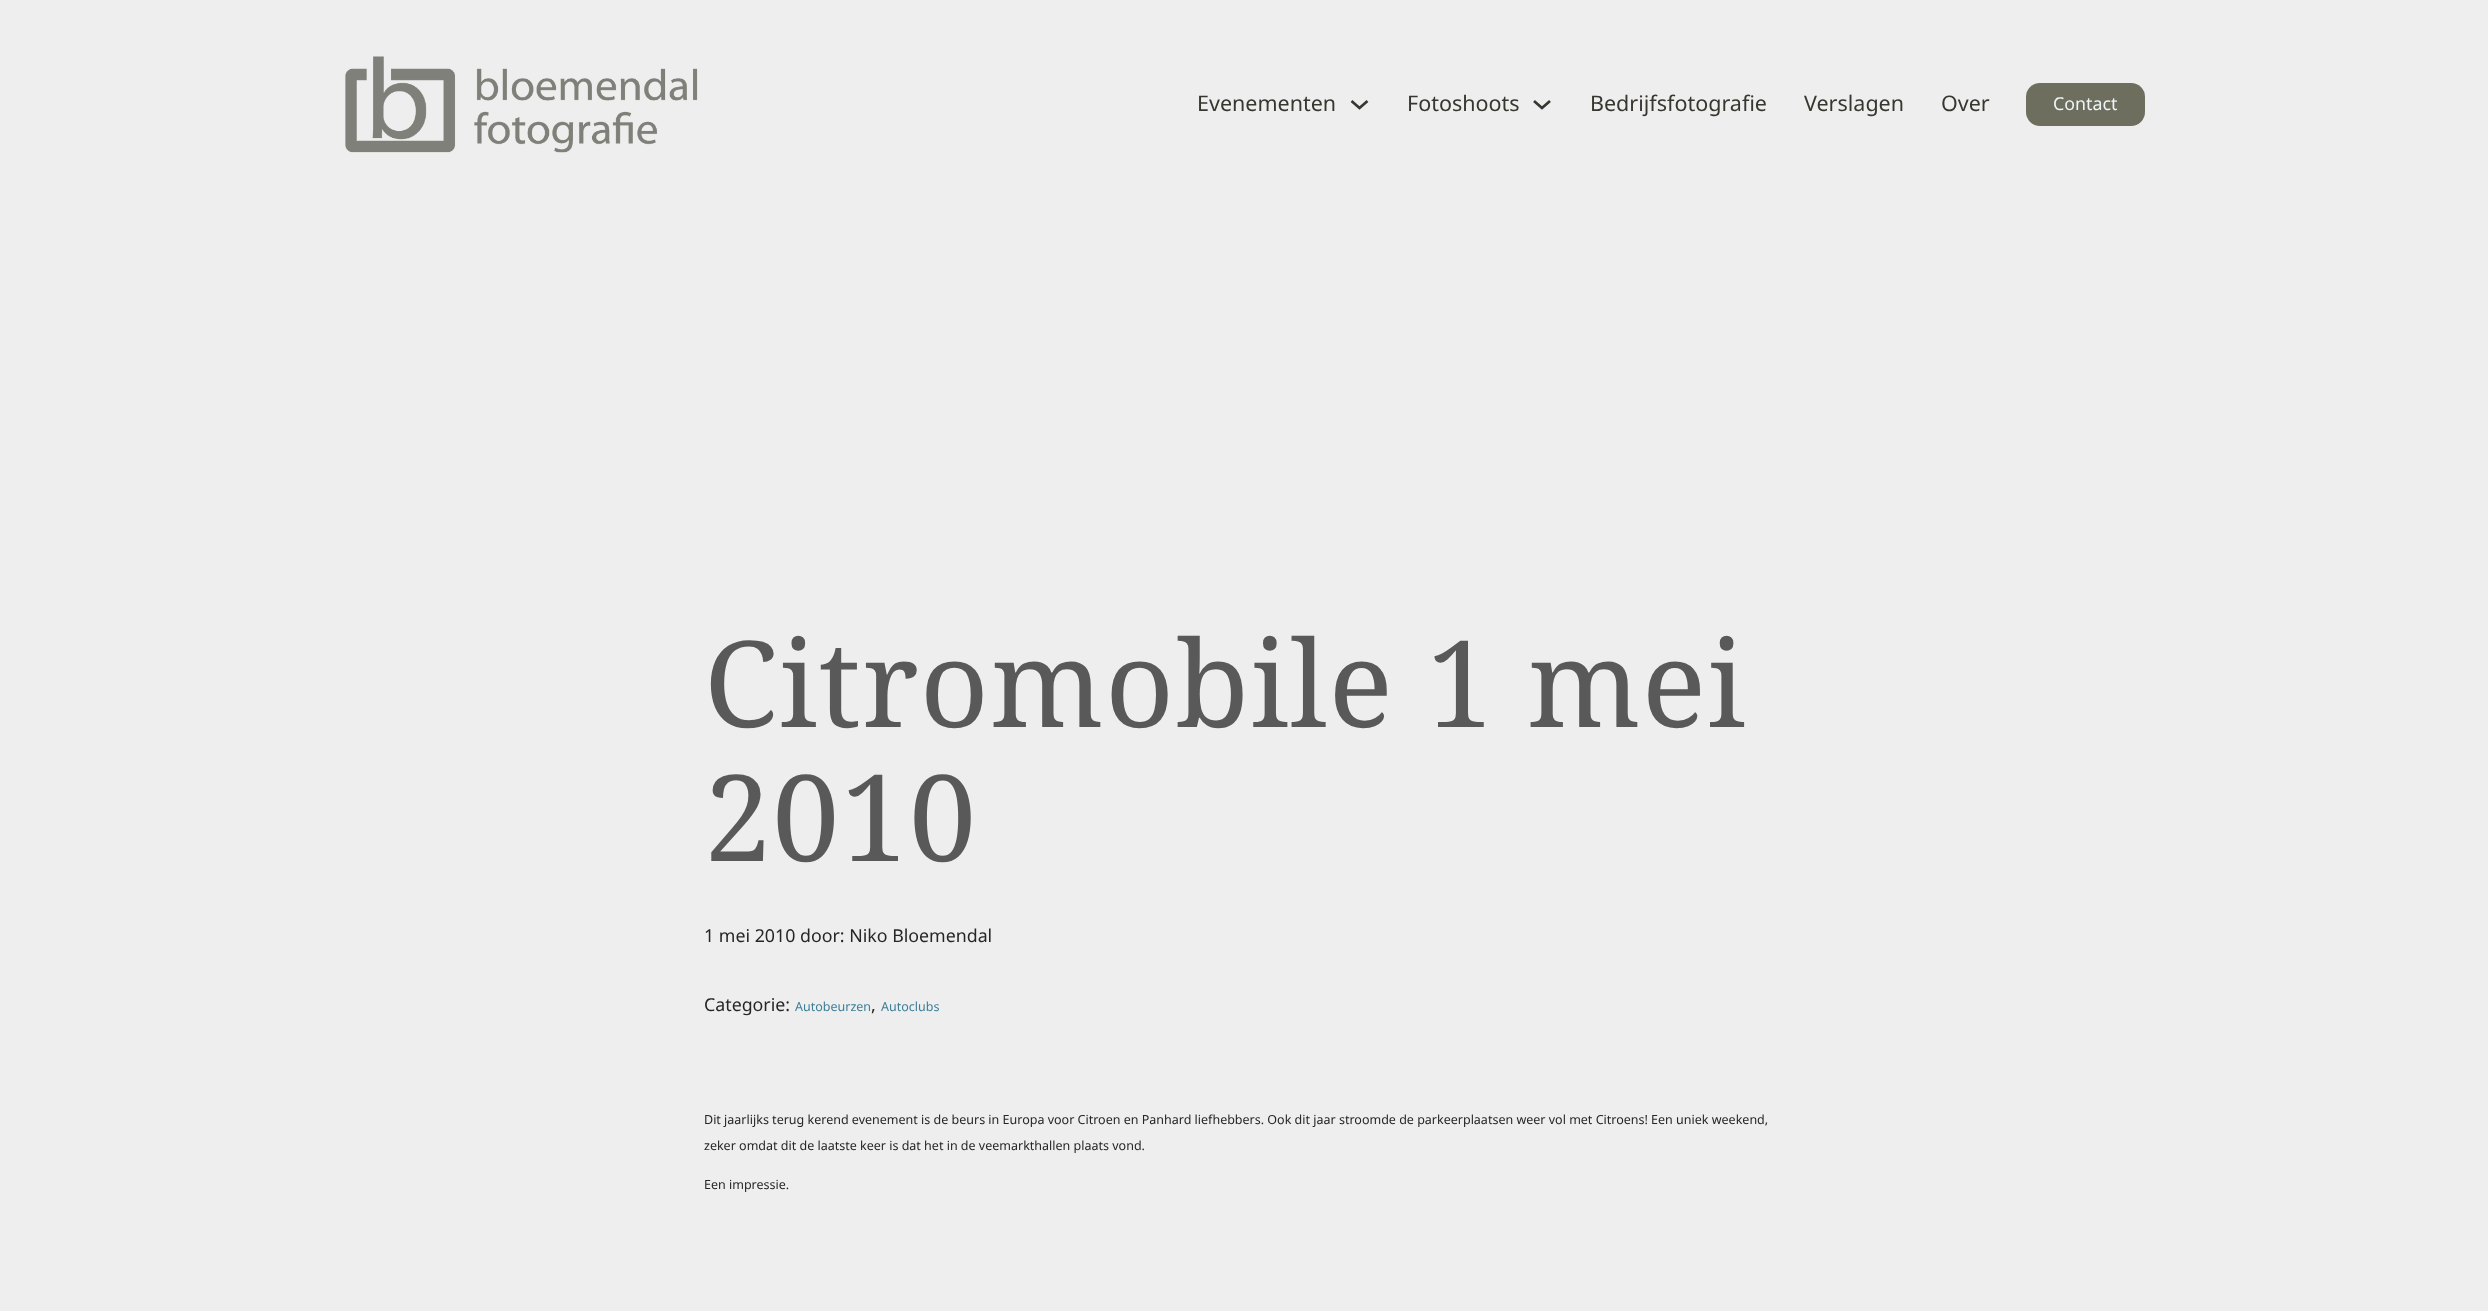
<!DOCTYPE html>
<meta charset="utf-8">
<style>body { margin: 0 } canvas { display: block }</style>
<canvas id="canvas" width="2488" height="1311"></canvas>
<img id="img1" src="img_01.png" hidden>
<script>
window.onload = function () {
	const canvas = document.getElementById("canvas");
	const ctx = canvas.getContext("2d");
	ctx.miterLimit = 4;
	ctx.fontKerning = "normal";
	function txt(s, x, y) {
		ctx.fillText(s, x, y);
	}
	function fill(x, y, w, h) {
		ctx.fillRect(x, y, w, h);
	}
	function round(x, y, w, h, r) {
		ctx.beginPath();
		ctx.roundRect(x, y, w, h, r);
		ctx.fill();
	}
	function img(id, x, y, w, h) {
		ctx.drawImage(document.getElementById(id), x, y, w, h);
	}

	ctx.fillStyle = "#EEEEEE";
	fill(0, 0, 2488, 1311);
	img("img1", 345, 56, 353, 97);
	ctx.beginPath();
	ctx.moveTo(1351.5, 101);
	ctx.lineTo(1359.5, 108);
	ctx.lineTo(1367.5, 101);
	ctx.strokeStyle = "#37372F";
	ctx.lineWidth = 2.7;
	ctx.stroke();
	ctx.beginPath();
	ctx.moveTo(1534, 101);
	ctx.lineTo(1542, 108);
	ctx.lineTo(1550, 101);
	ctx.stroke();
	ctx.fillStyle = "#6E6E5E";
	round(2026, 83, 119, 43, 14);
	ctx.font = "21.5px Noto Sans";
	ctx.fillStyle = "#37372F";
	txt("Evenementen", 1197, 111);
	txt("Fotoshoots", 1407, 111);
	txt("Bedrijfsfotografie", 1590, 111);
	txt("Verslagen", 1804, 111);
	txt("Over", 1941, 111);
	ctx.font = "17.8px Noto Sans";
	ctx.fillStyle = "#EDF5F8";
	txt("Contact", 2053, 110);
	ctx.letterSpacing = "1.25px";
	ctx.font = "120px Noto Serif";
	ctx.fillStyle = "#595959";
	txt("Citromobile 1 mei", 704, 727);
	txt("2010", 704, 861);
	ctx.letterSpacing = "0px";
	ctx.font = "17.8px Noto Sans";
	ctx.fillStyle = "#262626";
	txt("1 mei 2010 door: Niko Bloemendal", 704, 942);
	txt("Categorie:", 704, 1011);
	ctx.font = "12.5px Noto Sans";
	ctx.fillStyle = "#3D7F99";
	txt("Autobeurzen", 795, 1011);
	ctx.font = "17.8px Noto Sans";
	ctx.fillStyle = "#262626";
	txt(",", 871, 1011);
	ctx.font = "12.5px Noto Sans";
	ctx.fillStyle = "#3D7F99";
	txt("Autoclubs", 881, 1011);
	ctx.fillStyle = "#262626";
	txt("Dit jaarlijks terug kerend evenement is de beurs in Europa voor Citroen en Panhard liefhebbers. Ook dit jaar stroomde de parkeerplaatsen weer vol met Citroens! Een uniek weekend,", 704, 1124);
	txt("zeker omdat dit de laatste keer is dat het in de veemarkthallen plaats vond.", 704, 1150);
	txt("Een impressie.", 704, 1189);
};
</script>
